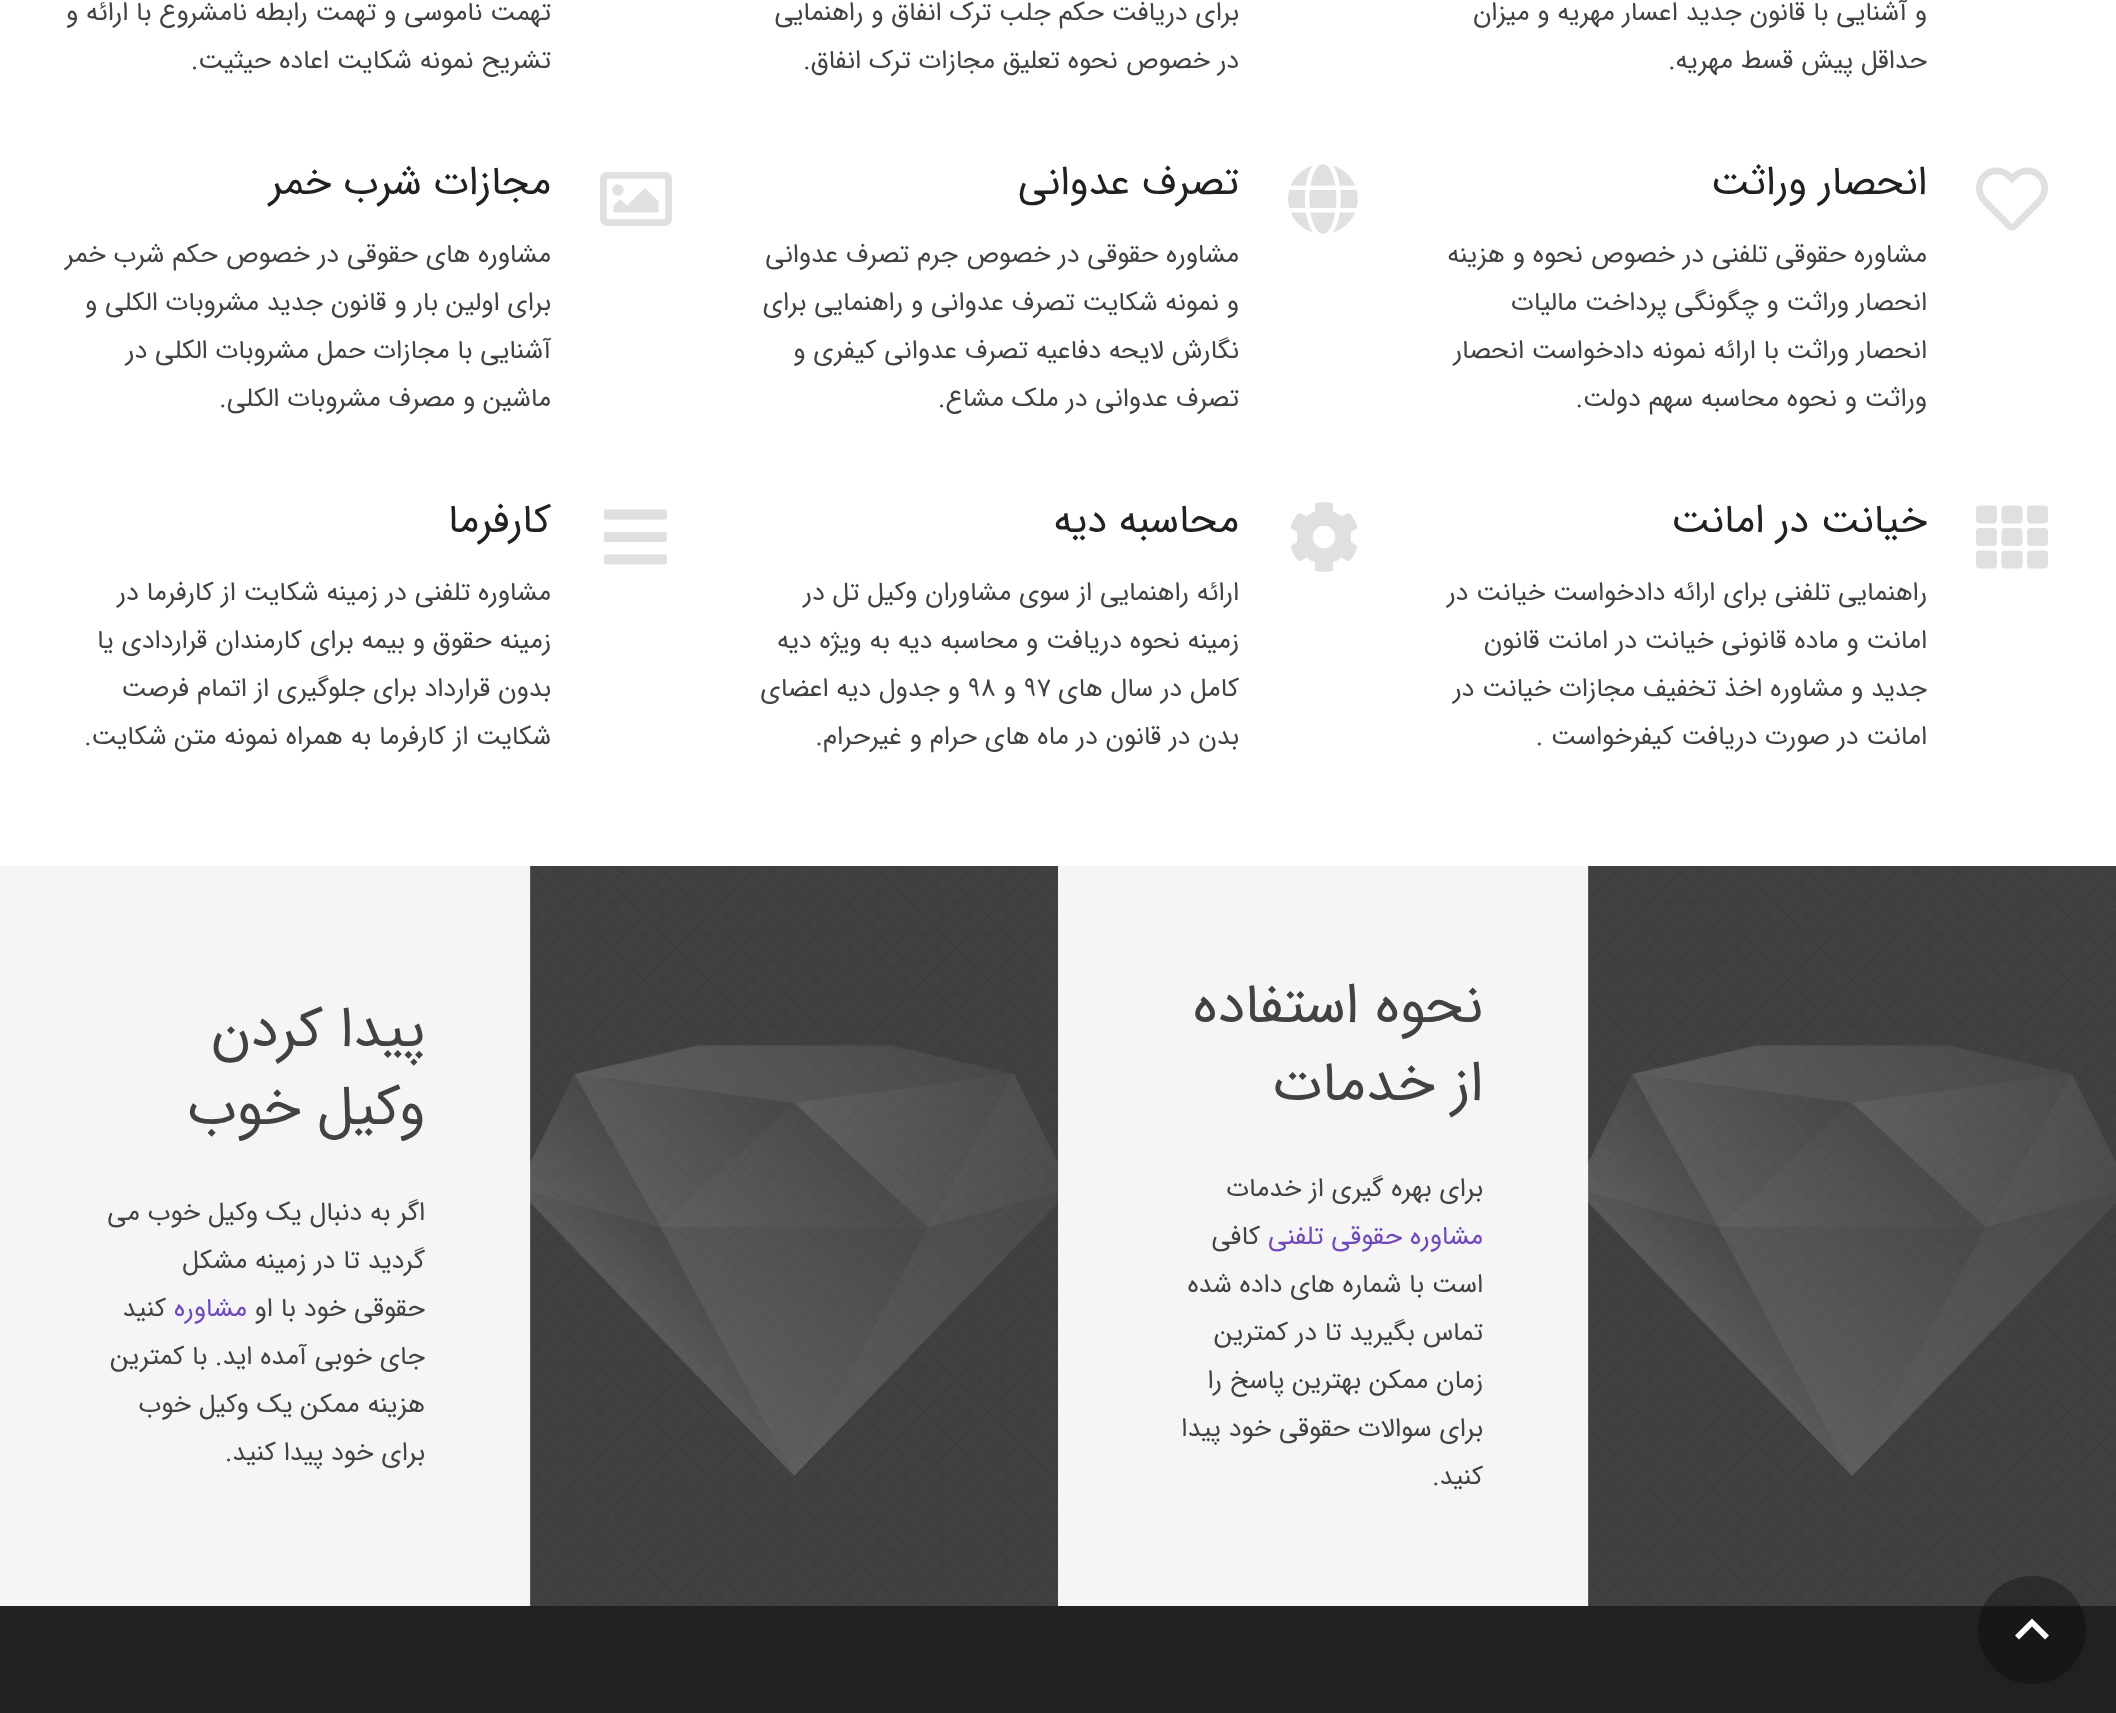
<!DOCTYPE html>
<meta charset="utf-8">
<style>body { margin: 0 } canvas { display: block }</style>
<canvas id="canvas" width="2116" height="1713"></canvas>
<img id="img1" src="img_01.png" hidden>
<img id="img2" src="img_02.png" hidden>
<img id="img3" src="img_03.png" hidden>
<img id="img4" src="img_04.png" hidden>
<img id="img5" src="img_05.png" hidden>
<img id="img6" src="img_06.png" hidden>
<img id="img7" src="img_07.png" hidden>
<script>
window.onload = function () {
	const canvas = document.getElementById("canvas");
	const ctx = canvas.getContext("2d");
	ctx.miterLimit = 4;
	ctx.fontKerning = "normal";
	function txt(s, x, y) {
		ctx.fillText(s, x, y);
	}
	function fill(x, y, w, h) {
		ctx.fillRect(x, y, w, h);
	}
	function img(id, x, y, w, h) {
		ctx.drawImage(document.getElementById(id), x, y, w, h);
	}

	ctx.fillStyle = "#FFFFFF";
	fill(0, 0, 2116, 1713);
	img("img1", 1976, 167, 72, 64);
	img("img2", 1976, 505, 72, 64);
	img("img3", 1288, 164, 70, 70);
	img("img4", 1290, 502, 68, 70);
	img("img5", 600, 172, 72, 54);
	img("img6", 604, 509, 63, 56);
	ctx.fillStyle = "#F5F5F5";
	fill(0, 866, 1589, 740);
	img("img7", 1588, 866, 528, 740);
	img("img7", 530, 866, 528, 740);
	ctx.fillStyle = "#212121";
	fill(0, 1606, 2116, 107);
	ctx.fillStyle = "rgba(0, 0, 0, 0.3)";
	ctx.beginPath();
	ctx.arc(2032, 1630, 54, 0, Math.PI * 2);
	ctx.fill();
	ctx.fillStyle = "#FFFFFF";
	ctx.beginPath();
	ctx.moveTo(2019, 1639.5);
	ctx.lineTo(2015, 1635.5);
	ctx.lineTo(2032, 1618.5);
	ctx.lineTo(2049, 1635.5);
	ctx.lineTo(2045, 1639.5);
	ctx.lineTo(2032, 1626.5);
	ctx.closePath();
	ctx.fill();
	ctx.direction = "rtl";
	ctx.font = "26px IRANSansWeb";
	ctx.fillStyle = "#424242";
	txt("و آشنایی با قانون جدید اعسار مهریه و میزان", 1927, 20);
	txt("حداقل پیش قسط مهریه.", 1927, 68);
	ctx.font = "40px IRANSansWeb";
	ctx.fillStyle = "#212121";
	txt("انحصار وراثت", 1927, 194);
	ctx.font = "26px IRANSansWeb";
	ctx.fillStyle = "#424242";
	txt("مشاوره حقوقی تلفنی در خصوص نحوه و هزینه", 1927, 262);
	txt("انحصار وراثت و چگونگی پرداخت مالیات", 1927, 310);
	txt("انحصار وراثت با ارائه نمونه دادخواست انحصار", 1927, 358);
	txt("وراثت و نحوه محاسبه سهم دولت.", 1927, 406);
	ctx.font = "40px IRANSansWeb";
	ctx.fillStyle = "#212121";
	txt("خیانت در امانت", 1927, 532);
	ctx.font = "26px IRANSansWeb";
	ctx.fillStyle = "#424242";
	txt("راهنمایی تلفنی برای ارائه دادخواست خیانت در", 1927, 600);
	txt("امانت و ماده قانونی خیانت در امانت قانون", 1927, 648);
	txt("جدید و مشاوره اخذ تخفیف مجازات خیانت در", 1927, 696);
	txt("امانت در صورت دریافت کیفرخواست .", 1927, 744);
	txt("برای دریافت حکم جلب ترک انفاق و راهنمایی", 1239, 20);
	txt("در خصوص نحوه تعلیق مجازات ترک انفاق.", 1239, 68);
	ctx.font = "40px IRANSansWeb";
	ctx.fillStyle = "#212121";
	txt("تصرف عدوانی", 1239, 194);
	ctx.font = "26px IRANSansWeb";
	ctx.fillStyle = "#424242";
	txt("مشاوره حقوقی در خصوص جرم تصرف عدوانی", 1239, 262);
	txt("و نمونه شکایت تصرف عدوانی و راهنمایی برای", 1239, 310);
	txt("نگارش لایحه دفاعیه تصرف عدوانی کیفری و", 1239, 358);
	txt("تصرف عدوانی در ملک مشاع.", 1239, 406);
	ctx.font = "40px IRANSansWeb";
	ctx.fillStyle = "#212121";
	txt("محاسبه دیه", 1239, 532);
	ctx.font = "26px IRANSansWeb";
	ctx.fillStyle = "#424242";
	txt("ارائه راهنمایی از سوی مشاوران وکیل تل در", 1239, 600);
	txt("زمینه نحوه دریافت و محاسبه دیه به ویژه دیه", 1239, 648);
	txt("کامل در سال های", 1239, 696);
	ctx.direction = "ltr";
	txt("۹۷", 1024, 696);
	ctx.direction = "rtl";
	txt("و", 1016, 696);
	ctx.direction = "ltr";
	txt("۹۸", 968, 696);
	ctx.direction = "rtl";
	txt("و جدول دیه اعضای", 960, 696);
	txt("بدن در قانون در ماه های حرام و غیرحرام.", 1239, 744);
	txt("تهمت ناموسی و تهمت رابطه نامشروع با ارائه و", 551, 20);
	txt("تشریح نمونه شکایت اعاده حیثیت.", 551, 68);
	ctx.font = "40px IRANSansWeb";
	ctx.fillStyle = "#212121";
	txt("مجازات شرب خمر", 551, 194);
	ctx.font = "26px IRANSansWeb";
	ctx.fillStyle = "#424242";
	txt("مشاوره های حقوقی در خصوص حکم شرب خمر", 551, 262);
	txt("برای اولین بار و قانون جدید مشروبات الکلی و", 551, 310);
	txt("آشنایی با مجازات حمل مشروبات الکلی در", 551, 358);
	txt("ماشین و مصرف مشروبات الکلی.", 551, 406);
	ctx.font = "40px IRANSansWeb";
	ctx.fillStyle = "#212121";
	txt("کارفرما", 551, 532);
	ctx.font = "26px IRANSansWeb";
	ctx.fillStyle = "#424242";
	txt("مشاوره تلفنی در زمینه شکایت از کارفرما در", 551, 600);
	txt("زمینه حقوق و بیمه برای کارمندان قراردادی یا", 551, 648);
	txt("بدون قرارداد برای جلوگیری از اتمام فرصت", 551, 696);
	txt("شکایت از کارفرما به همراه نمونه متن شکایت.", 551, 744);
	ctx.font = "56px IRANSansWeb";
	txt("نحوه استفاده", 1483, 1022);
	txt("از خدمات", 1483, 1100);
	ctx.font = "26px IRANSansWeb";
	txt("برای بهره گیری از خدمات", 1483, 1196);
	ctx.fillStyle = "#7049BA";
	txt("مشاوره حقوقی تلفنی", 1483, 1244);
	ctx.fillStyle = "#424242";
	txt("کافی", 1260, 1244);
	txt("است با شماره های داده شده", 1483, 1292);
	txt("تماس بگیرید تا در کمترین", 1483, 1340);
	txt("زمان ممکن بهترین پاسخ را", 1483, 1388);
	txt("برای سوالات حقوقی خود پیدا", 1483, 1436);
	txt("کنید.", 1483, 1484);
	ctx.font = "56px IRANSansWeb";
	txt("پیدا کردن", 425, 1046);
	txt("وکیل خوب", 425, 1124);
	ctx.font = "26px IRANSansWeb";
	txt("اگر به دنبال یک وکیل خوب می", 425, 1220);
	txt("گردید تا در زمینه مشکل", 425, 1268);
	txt("حقوقی خود با او", 425, 1316);
	ctx.fillStyle = "#7049BA";
	txt("مشاوره", 247, 1316);
	ctx.fillStyle = "#424242";
	txt("کنید", 166, 1316);
	txt("جای خوبی آمده اید. با کمترین", 425, 1364);
	txt("هزینه ممکن یک وکیل خوب", 425, 1412);
	txt("برای خود پیدا کنید.", 425, 1460);
};
</script>
